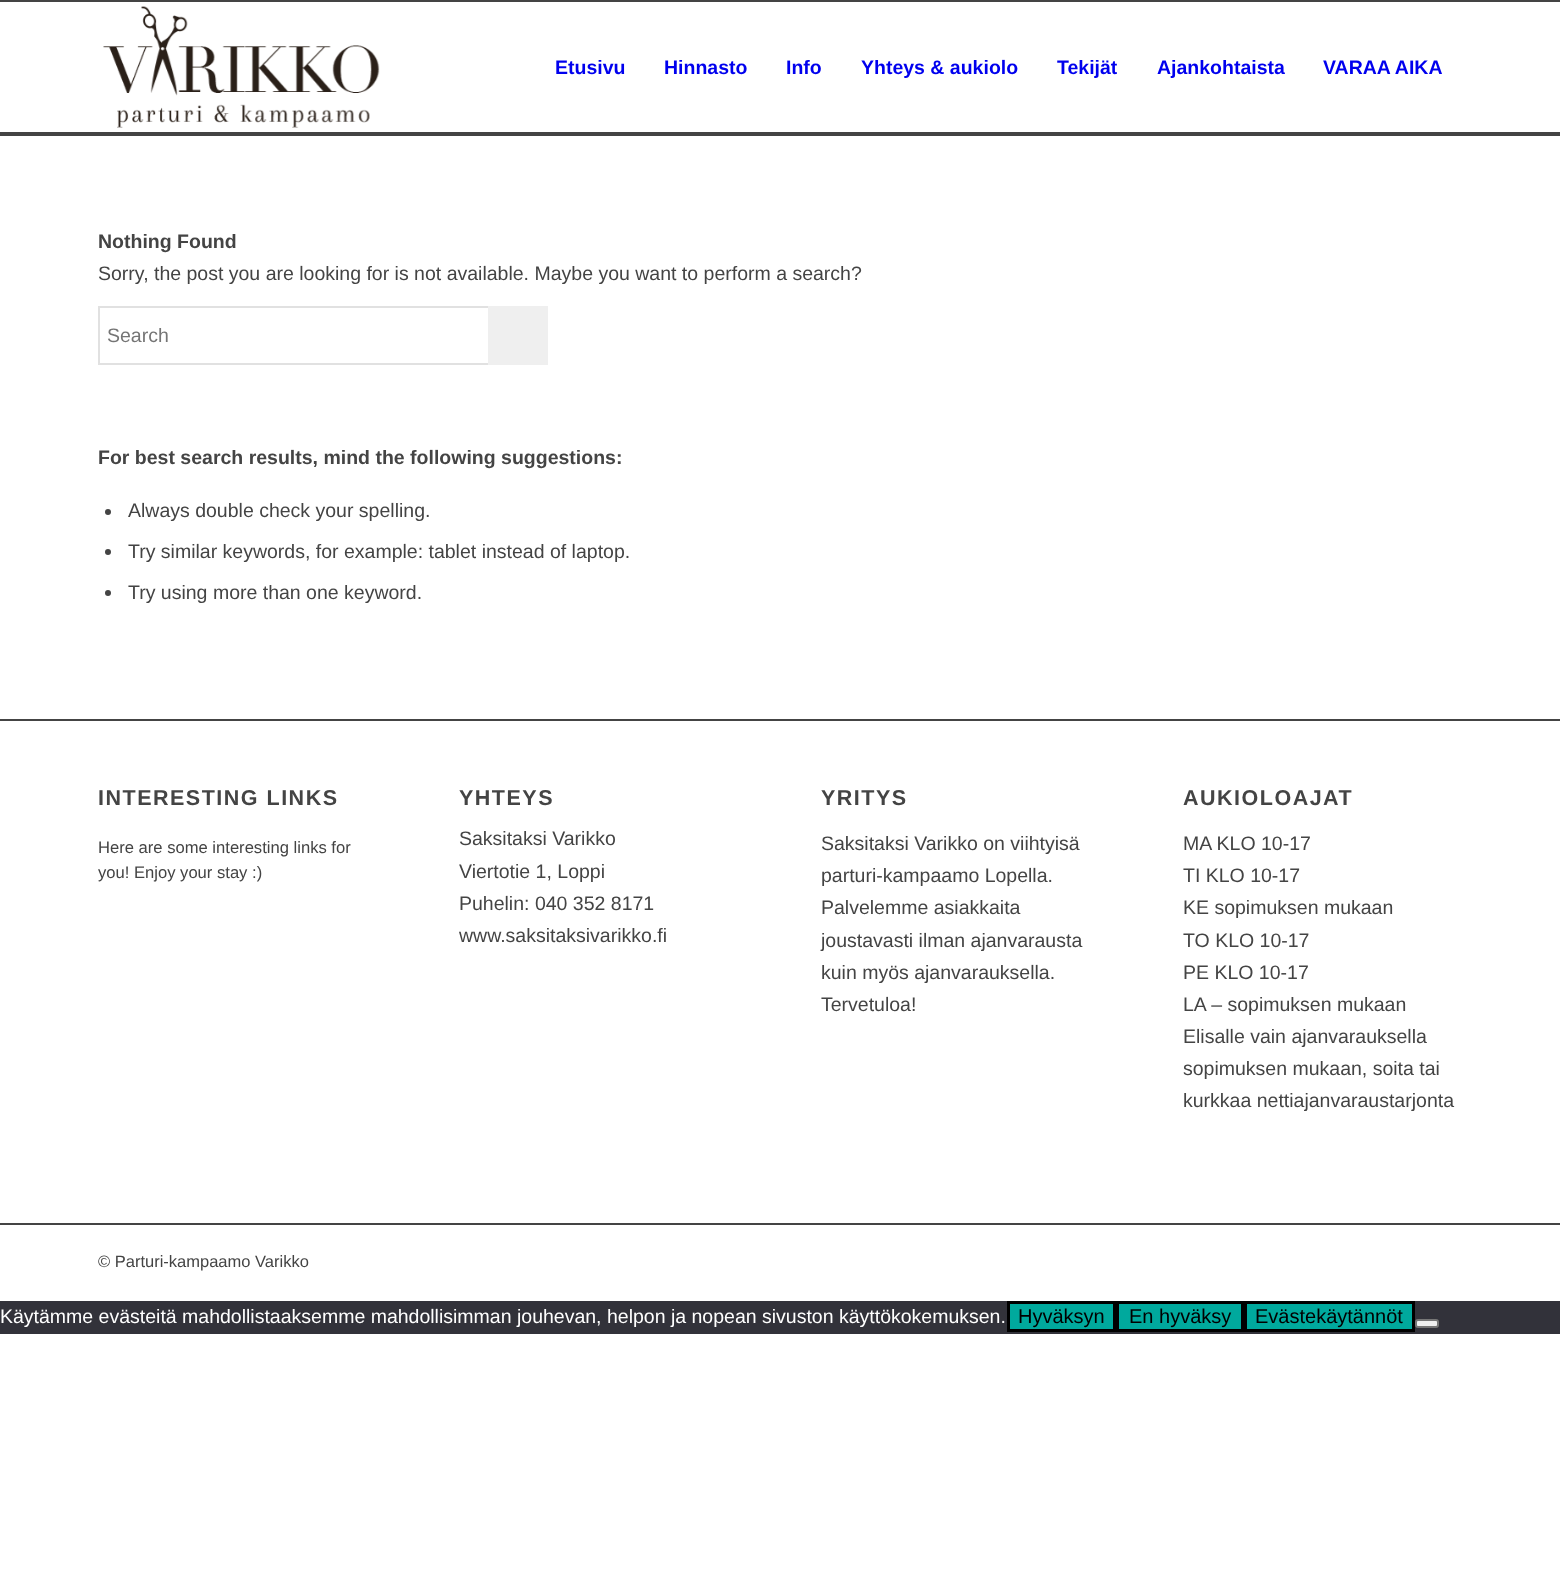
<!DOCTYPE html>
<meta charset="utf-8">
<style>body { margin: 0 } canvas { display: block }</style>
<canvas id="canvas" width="1560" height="1575"></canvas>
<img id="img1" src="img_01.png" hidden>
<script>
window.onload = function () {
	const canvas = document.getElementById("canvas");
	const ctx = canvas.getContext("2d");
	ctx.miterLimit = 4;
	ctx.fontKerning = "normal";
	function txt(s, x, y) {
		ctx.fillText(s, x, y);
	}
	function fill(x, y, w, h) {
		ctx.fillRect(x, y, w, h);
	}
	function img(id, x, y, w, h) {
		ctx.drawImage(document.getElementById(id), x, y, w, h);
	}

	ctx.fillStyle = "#FFFFFF";
	fill(0, 0, 1560, 1575);
	ctx.fillStyle = "#444444";
	fill(0, 0, 1560, 2);
	img("img1", 103, 6, 277, 122);
	fill(0, 132, 1560, 4);
	ctx.strokeStyle = "#E1E1E1";
	ctx.lineWidth = 2;
	ctx.strokeRect(99, 307, 448, 57);
	ctx.fillStyle = "#EFEFEF";
	fill(488, 306, 60, 59);
	ctx.fillStyle = "#444444";
	ctx.beginPath();
	ctx.arc(108, 512, 3, 0, Math.PI * 2);
	ctx.fill();
	ctx.beginPath();
	ctx.arc(108, 552, 3, 0, Math.PI * 2);
	ctx.fill();
	ctx.beginPath();
	ctx.arc(108, 593, 3, 0, Math.PI * 2);
	ctx.fill();
	fill(0, 719, 1560, 2);
	fill(0, 1223, 1560, 2);
	ctx.fillStyle = "#32323A";
	fill(0, 1301, 1560, 33);
	ctx.fillStyle = "#00A99D";
	ctx.beginPath();
	ctx.rect(1008.5, 1302.5, 106, 28);
	ctx.fill();
	ctx.strokeStyle = "#000000";
	ctx.lineWidth = 3;
	ctx.stroke();
	ctx.beginPath();
	ctx.rect(1117.5, 1302.5, 125, 28);
	ctx.fill();
	ctx.stroke();
	ctx.beginPath();
	ctx.rect(1245.5, 1302.5, 168, 28);
	ctx.fill();
	ctx.stroke();
	ctx.fillStyle = "#EFEFEF";
	ctx.beginPath();
	ctx.roundRect(1416, 1320, 22, 7, 2);
	ctx.fill();
	ctx.strokeStyle = "#767676";
	ctx.lineWidth = 2;
	ctx.stroke();
	ctx.font = "bold 19.5px Liberation Sans";
	ctx.fillStyle = "#0000EE";
	txt("Etusivu", 555, 74);
	txt("Hinnasto", 664, 74);
	txt("Info", 786, 74);
	txt("Yhteys & aukiolo", 861, 74);
	txt("Tekijät", 1057, 74);
	txt("Ajankohtaista", 1157, 74);
	txt("VARAA AIKA", 1323, 74);
	ctx.fillStyle = "#444444";
	txt("Nothing Found", 98, 248);
	ctx.font = "19.5px Liberation Sans";
	txt("Sorry, the post you are looking for is not available. Maybe you want to perform a search?", 98, 280);
	ctx.fillStyle = "#757575";
	txt("Search", 107, 342);
	ctx.font = "bold 19.5px Liberation Sans";
	ctx.fillStyle = "#444444";
	txt("For best search results, mind the following suggestions:", 98, 464);
	ctx.font = "19.5px Liberation Sans";
	txt("Always double check your spelling.", 128, 517);
	txt("Try similar keywords, for example: tablet instead of laptop.", 128, 558);
	txt("Try using more than one keyword.", 128, 599);
	ctx.letterSpacing = "1.5px";
	ctx.font = "bold 21.5px Liberation Sans";
	txt("INTERESTING LINKS", 98, 805);
	ctx.letterSpacing = "0px";
	ctx.font = "16.6px Liberation Sans";
	txt("Here are some interesting links for", 98, 853);
	txt("you! Enjoy your stay :)", 98, 878);
	ctx.letterSpacing = "1.5px";
	ctx.font = "bold 21.5px Liberation Sans";
	txt("YHTEYS", 459, 805);
	ctx.letterSpacing = "0px";
	ctx.font = "19.5px Liberation Sans";
	txt("Saksitaksi Varikko", 459, 845);
	txt("Viertotie 1, Loppi", 459, 878);
	txt("Puhelin: 040 352 8171", 459, 910);
	txt("www.saksitaksivarikko.fi", 459, 942);
	ctx.letterSpacing = "1.5px";
	ctx.font = "bold 21.5px Liberation Sans";
	txt("YRITYS", 821, 805);
	ctx.letterSpacing = "0px";
	ctx.font = "19.5px Liberation Sans";
	txt("Saksitaksi Varikko on viihtyisä", 821, 850);
	txt("parturi-kampaamo Lopella.", 821, 882);
	txt("Palvelemme asiakkaita", 821, 914);
	txt("joustavasti ilman ajanvarausta", 821, 947);
	txt("kuin myös ajanvarauksella.", 821, 979);
	txt("Tervetuloa!", 821, 1011);
	ctx.letterSpacing = "1.5px";
	ctx.font = "bold 21.5px Liberation Sans";
	txt("AUKIOLOAJAT", 1183, 805);
	ctx.letterSpacing = "0px";
	ctx.font = "19.5px Liberation Sans";
	txt("MA KLO 10-17", 1183, 850);
	txt("TI KLO 10-17", 1183, 882);
	txt("KE sopimuksen mukaan", 1183, 914);
	txt("TO KLO 10-17", 1183, 947);
	txt("PE KLO 10-17", 1183, 979);
	txt("LA – sopimuksen mukaan", 1183, 1011);
	txt("Elisalle vain ajanvarauksella", 1183, 1043);
	txt("sopimuksen mukaan, soita tai", 1183, 1075);
	txt("kurkkaa nettiajanvaraustarjonta", 1183, 1107);
	ctx.font = "16.5px Liberation Sans";
	txt("© Parturi-kampaamo Varikko", 98, 1267);
	ctx.font = "19.5px Liberation Sans";
	ctx.fillStyle = "#FFFFFF";
	txt("Käytämme evästeitä mahdollistaaksemme mahdollisimman jouhevan, helpon ja nopean sivuston käyttökokemuksen.", 0, 1323);
	ctx.font = "20px Liberation Sans";
	ctx.fillStyle = "#000000";
	txt("Hyväksyn", 1018, 1323);
	txt("En hyväksy", 1129, 1323);
	txt("Evästekäytännöt", 1255, 1323);
};
</script>
